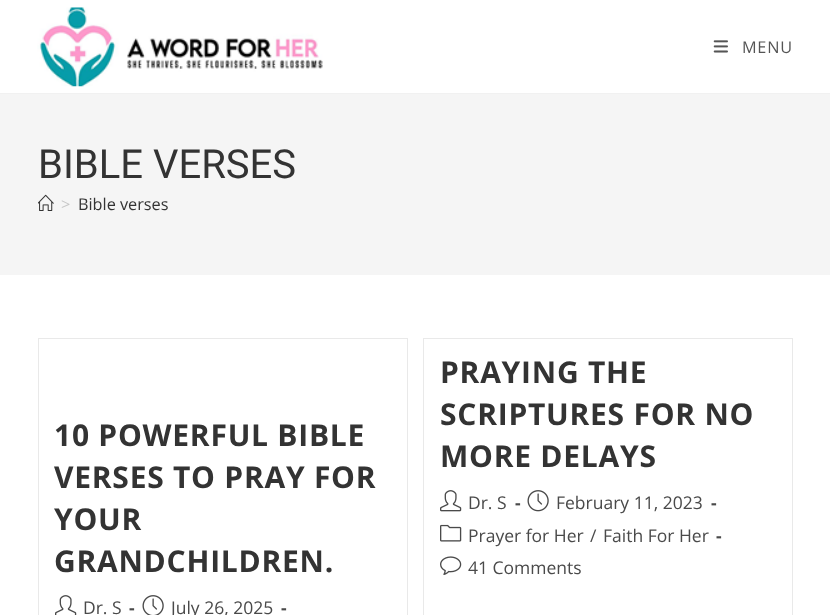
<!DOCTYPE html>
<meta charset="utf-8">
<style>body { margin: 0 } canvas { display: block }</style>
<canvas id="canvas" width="830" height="615"></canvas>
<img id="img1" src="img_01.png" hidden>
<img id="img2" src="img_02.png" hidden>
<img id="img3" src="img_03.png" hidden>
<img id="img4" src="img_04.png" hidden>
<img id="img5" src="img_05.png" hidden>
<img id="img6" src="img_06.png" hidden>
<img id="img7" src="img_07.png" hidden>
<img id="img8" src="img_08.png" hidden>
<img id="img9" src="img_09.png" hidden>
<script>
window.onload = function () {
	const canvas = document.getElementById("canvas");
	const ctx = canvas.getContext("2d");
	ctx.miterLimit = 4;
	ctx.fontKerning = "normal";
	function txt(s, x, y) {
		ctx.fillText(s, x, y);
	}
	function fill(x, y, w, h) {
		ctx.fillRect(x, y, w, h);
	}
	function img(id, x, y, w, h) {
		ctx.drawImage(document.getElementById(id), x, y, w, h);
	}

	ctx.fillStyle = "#FFFFFF";
	fill(0, 0, 830, 615);
	ctx.fillStyle = "#F1F1F1";
	fill(0, 93, 830, 1);
	img("img1", 37, 7, 286, 80);
	img("img2", 713, 40, 15, 13);
	ctx.fillStyle = "#F5F5F5";
	fill(0, 94, 830, 181);
	img("img3", 38, 194, 16, 17);
	ctx.strokeStyle = "#E9E9E9";
	ctx.strokeRect(38.5, 338.5, 369, 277);
	img("img4", 55, 595, 22, 20);
	img("img5", 142, 595, 22, 20);
	ctx.strokeRect(423.5, 338.5, 369, 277);
	img("img6", 440, 490, 22, 22);
	img("img7", 527, 490, 22, 22);
	img("img8", 440, 524, 22, 18);
	img("img9", 440, 556, 22, 19);
	ctx.letterSpacing = "0.75px";
	ctx.font = "16.25px Open Sans";
	ctx.fillStyle = "#555555";
	txt("MENU", 742, 53);
	ctx.letterSpacing = "0px";
	ctx.font = "40px Roboto";
	ctx.fillStyle = "#333333";
	txt("BIBLE VERSES", 38, 178);
	ctx.font = "16.25px Open Sans";
	ctx.fillStyle = "#C6C6C6";
	txt(">", 61, 210);
	ctx.fillStyle = "#333333";
	txt("Bible verses", 78, 210);
	ctx.letterSpacing = "0.75px";
	ctx.font = "bold 30px Open Sans";
	txt("10 POWERFUL BIBLE", 54, 446);
	txt("VERSES TO PRAY FOR", 54, 488);
	txt("YOUR", 54, 530);
	txt("GRANDCHILDREN.", 54, 572);
	ctx.letterSpacing = "0px";
	ctx.font = "17.5px Open Sans";
	ctx.fillStyle = "#4A4A4A";
	txt("Dr. S", 83, 614);
	ctx.font = "bold 17.5px Open Sans";
	txt("-", 129, 614);
	ctx.font = "17.5px Open Sans";
	txt("July 26, 2025", 171, 614);
	ctx.font = "bold 17.5px Open Sans";
	txt("-", 281, 614);
	ctx.letterSpacing = "0.75px";
	ctx.font = "bold 30px Open Sans";
	ctx.fillStyle = "#333333";
	txt("PRAYING THE", 440, 383);
	txt("SCRIPTURES FOR NO", 440, 425);
	txt("MORE DELAYS", 440, 467);
	ctx.letterSpacing = "0px";
	ctx.font = "17.5px Open Sans";
	ctx.fillStyle = "#4A4A4A";
	txt("Dr. S", 468, 509);
	ctx.font = "bold 17.5px Open Sans";
	txt("-", 515, 509);
	ctx.font = "17.5px Open Sans";
	txt("February 11, 2023", 556, 509);
	ctx.font = "bold 17.5px Open Sans";
	txt("-", 711, 509);
	ctx.font = "17.5px Open Sans";
	txt("Prayer for Her", 468, 542);
	txt("/", 590, 542);
	txt("Faith For Her", 603, 542);
	ctx.font = "bold 17.5px Open Sans";
	txt("-", 716, 542);
	ctx.font = "17.5px Open Sans";
	txt("41 Comments", 468, 574);
};
</script>
